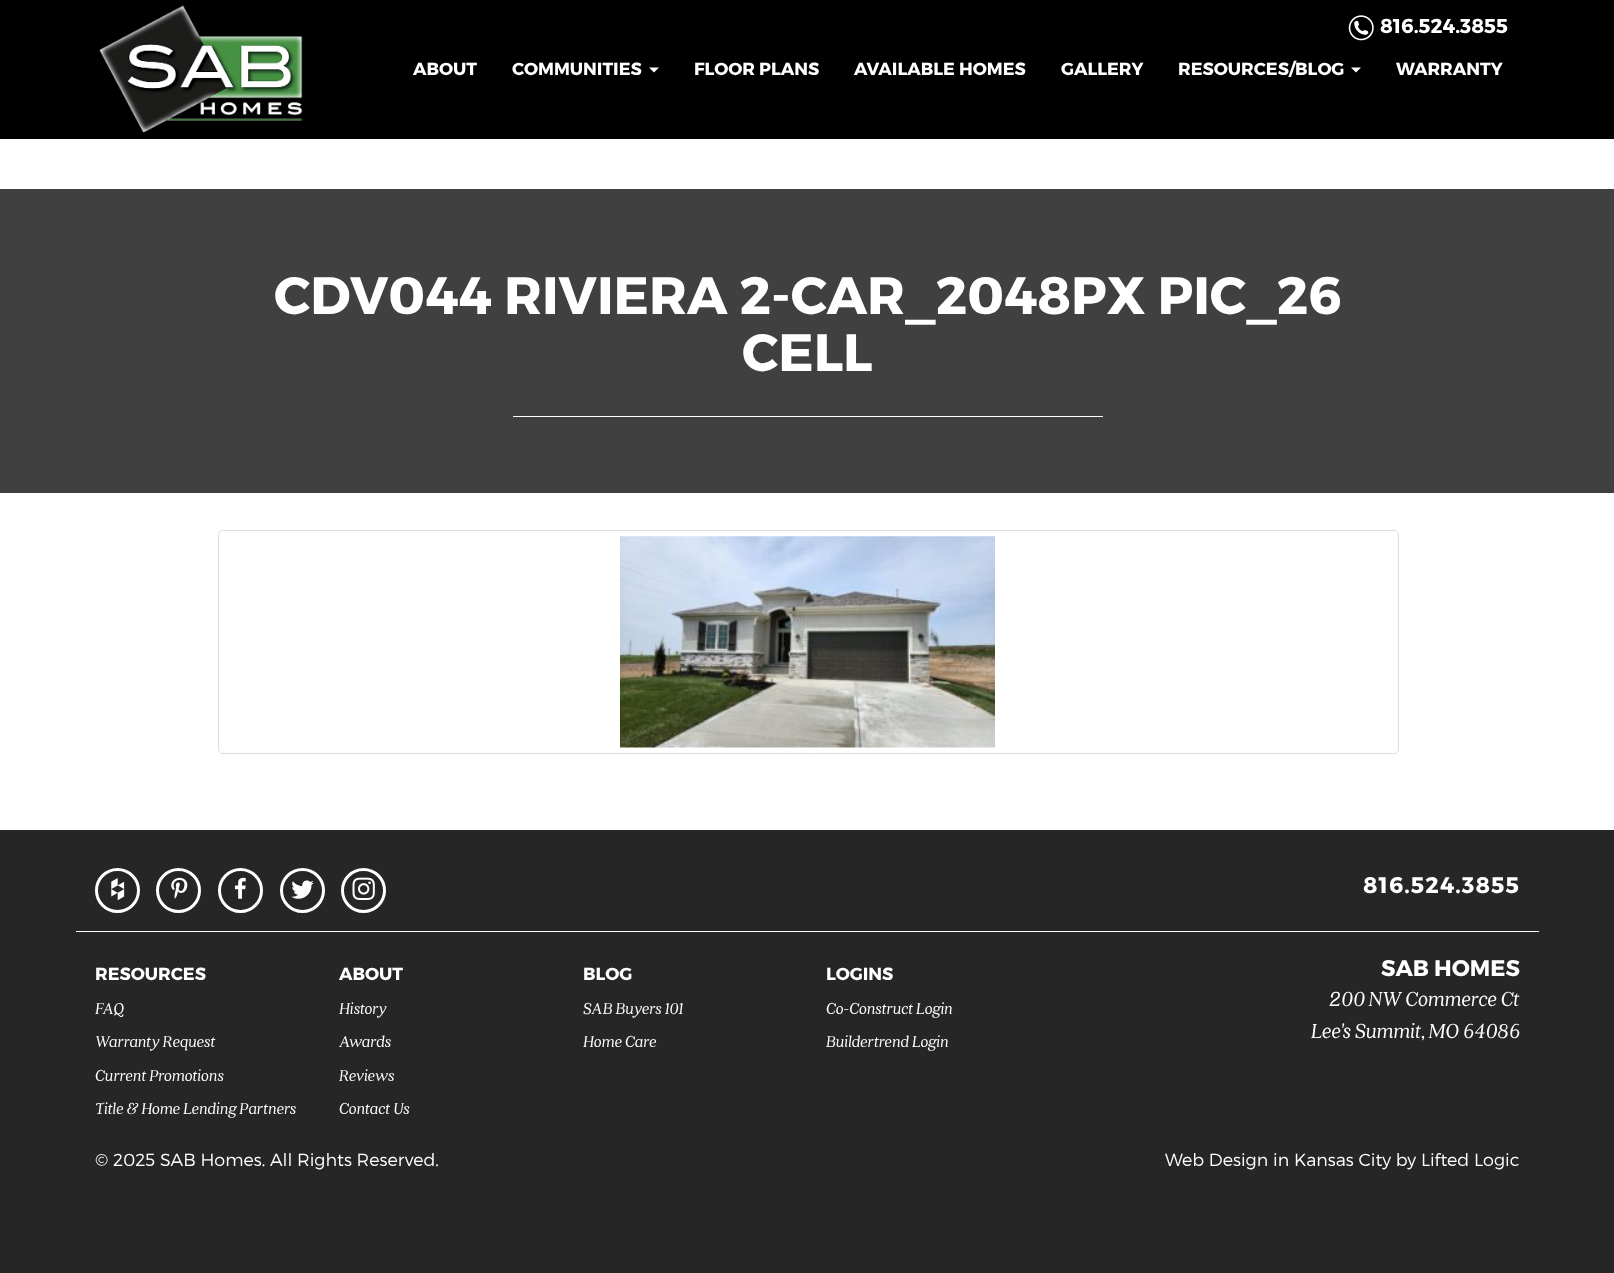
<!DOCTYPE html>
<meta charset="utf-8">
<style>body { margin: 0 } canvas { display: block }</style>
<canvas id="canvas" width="1614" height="1273"></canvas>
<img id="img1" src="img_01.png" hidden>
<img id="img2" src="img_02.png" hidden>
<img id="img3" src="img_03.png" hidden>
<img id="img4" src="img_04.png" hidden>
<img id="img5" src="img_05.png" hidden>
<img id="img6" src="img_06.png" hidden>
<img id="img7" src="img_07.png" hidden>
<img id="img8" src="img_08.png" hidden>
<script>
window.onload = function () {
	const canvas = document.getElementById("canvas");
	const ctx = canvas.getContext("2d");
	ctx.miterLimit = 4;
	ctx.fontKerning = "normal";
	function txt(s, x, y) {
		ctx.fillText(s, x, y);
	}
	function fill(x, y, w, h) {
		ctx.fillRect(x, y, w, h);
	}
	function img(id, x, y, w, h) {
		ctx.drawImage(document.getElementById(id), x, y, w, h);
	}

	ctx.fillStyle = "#FFFFFF";
	fill(0, 0, 1614, 1273);
	ctx.fillStyle = "#000000";
	fill(0, 0, 1614, 139);
	img("img1", 99, 5, 204, 128);
	img("img2", 1348, 15, 26, 26);
	ctx.fillStyle = "#FFFFFF";
	ctx.beginPath();
	ctx.moveTo(649, 67.5);
	ctx.lineTo(659, 67.5);
	ctx.lineTo(654, 72.5);
	ctx.closePath();
	ctx.fill();
	ctx.beginPath();
	ctx.moveTo(1351, 67.5);
	ctx.lineTo(1361, 67.5);
	ctx.lineTo(1356, 72.5);
	ctx.closePath();
	ctx.fill();
	ctx.fillStyle = "#404040";
	fill(0, 189, 1614, 304);
	ctx.fillStyle = "#FFFFFF";
	fill(513, 416, 590, 1);
	ctx.beginPath();
	ctx.roundRect(218.5, 530.5, 1180, 223, 4.5);
	ctx.strokeStyle = "#DDDDDD";
	ctx.stroke();
	img("img3", 620, 536, 375, 212);
	ctx.fillStyle = "#262626";
	fill(0, 830, 1614, 443);
	ctx.fillStyle = "#FFFFFF";
	fill(76, 931, 1463, 1);
	ctx.beginPath();
	ctx.arc(117.5, 890.5, 21, 0, Math.PI * 2);
	ctx.strokeStyle = "#FFFFFF";
	ctx.lineWidth = 3;
	ctx.stroke();
	img("img4", 111, 878, 14, 23);
	ctx.beginPath();
	ctx.arc(178.5, 890.5, 21, 0, Math.PI * 2);
	ctx.stroke();
	img("img5", 171, 877, 17, 22);
	ctx.beginPath();
	ctx.arc(240.5, 890.5, 21, 0, Math.PI * 2);
	ctx.stroke();
	img("img6", 234, 877, 12, 22);
	ctx.beginPath();
	ctx.arc(302.5, 890.5, 21, 0, Math.PI * 2);
	ctx.stroke();
	img("img7", 291, 880, 23, 19);
	ctx.beginPath();
	ctx.arc(363.5, 890.5, 21, 0, Math.PI * 2);
	ctx.stroke();
	img("img8", 352, 877, 23, 23);
	ctx.font = "bold 20px Montserrat";
	txt("816.524.3855", 1380, 33);
	ctx.font = "bold 17.5px Montserrat";
	txt("ABOUT", 413, 75);
	txt("COMMUNITIES", 512, 75);
	txt("FLOOR PLANS", 694, 75);
	txt("AVAILABLE HOMES", 854, 75);
	txt("GALLERY", 1061, 75);
	txt("RESOURCES/BLOG", 1178, 75);
	txt("WARRANTY", 1396, 75);
	ctx.font = "bold 52.5px Montserrat";
	txt("CDV044 RIVIERA 2-CAR_2048PX PIC_26", 274, 314);
	txt("CELL", 742, 371);
	ctx.letterSpacing = "1.1px";
	ctx.font = "bold 22.5px Montserrat";
	txt("816.524.3855", 1363, 893);
	ctx.letterSpacing = "0px";
	ctx.font = "bold 17.5px Montserrat";
	txt("RESOURCES", 95, 980);
	ctx.font = "italic 17.5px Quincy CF";
	txt("FAQ", 95, 1014);
	txt("Warranty Request", 95, 1047);
	txt("Current Promotions", 95, 1081);
	txt("Title & Home Lending Partners", 95, 1114);
	ctx.font = "bold 17.5px Montserrat";
	txt("ABOUT", 339, 980);
	ctx.font = "italic 17.5px Quincy CF";
	txt("History", 339, 1014);
	txt("Awards", 339, 1047);
	txt("Reviews", 339, 1081);
	txt("Contact Us", 339, 1114);
	ctx.font = "bold 17.5px Montserrat";
	txt("BLOG", 583, 980);
	ctx.font = "italic 17.5px Quincy CF";
	txt("SAB Buyers 101", 583, 1014);
	txt("Home Care", 583, 1047);
	ctx.font = "bold 17.5px Montserrat";
	txt("LOGINS", 826, 980);
	ctx.font = "italic 17.5px Quincy CF";
	txt("Co-Construct Login", 826, 1014);
	txt("Buildertrend Login", 826, 1047);
	ctx.font = "bold 22.5px Montserrat";
	txt("SAB HOMES", 1381, 976);
	ctx.font = "italic 22.5px Quincy CF";
	txt("200 NW Commerce Ct", 1329, 1006);
	txt("Lee's Summit, MO 64086", 1311, 1038);
	ctx.font = "300 17.5px Montserrat";
	txt("© 2025 SAB Homes. All Rights Reserved.", 95, 1166);
	txt("Web Design in Kansas City by Lifted Logic", 1165, 1166);
};
</script>
